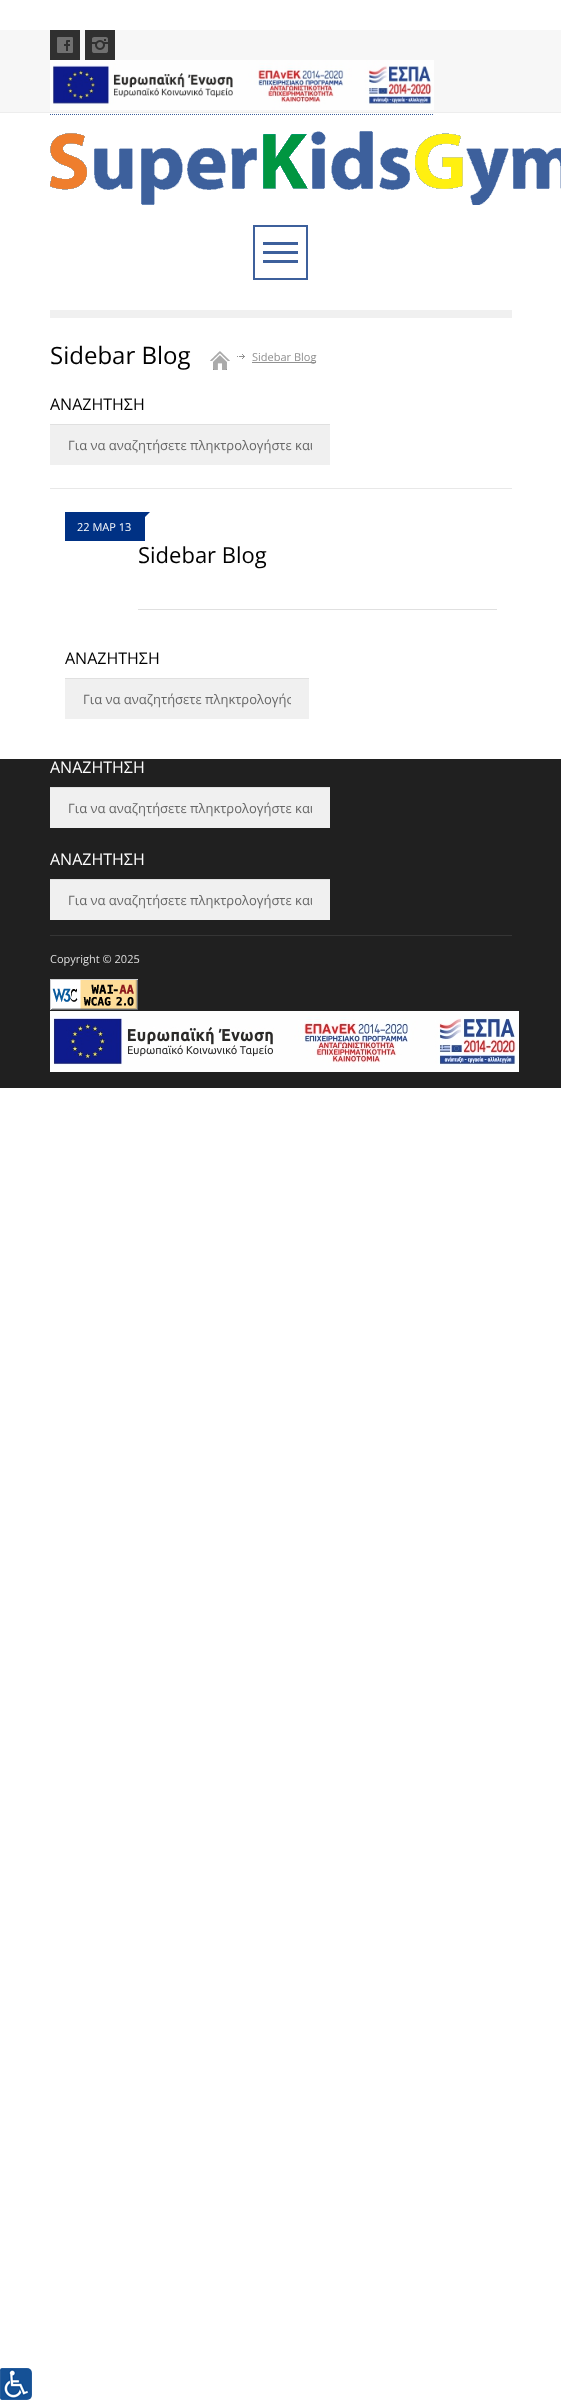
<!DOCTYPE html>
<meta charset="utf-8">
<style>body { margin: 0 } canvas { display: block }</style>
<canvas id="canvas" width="561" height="2400"></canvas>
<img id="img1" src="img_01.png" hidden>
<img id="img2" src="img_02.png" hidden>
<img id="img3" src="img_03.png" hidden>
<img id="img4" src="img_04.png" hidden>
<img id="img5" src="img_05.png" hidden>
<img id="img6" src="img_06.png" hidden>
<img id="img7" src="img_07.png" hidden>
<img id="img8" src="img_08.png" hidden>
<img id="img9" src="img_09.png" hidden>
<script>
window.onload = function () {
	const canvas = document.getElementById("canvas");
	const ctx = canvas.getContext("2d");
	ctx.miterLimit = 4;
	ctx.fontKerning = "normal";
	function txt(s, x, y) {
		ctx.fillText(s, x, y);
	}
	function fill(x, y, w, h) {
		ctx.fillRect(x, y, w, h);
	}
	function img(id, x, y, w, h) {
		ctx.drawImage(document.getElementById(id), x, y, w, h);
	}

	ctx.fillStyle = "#FFFFFF";
	fill(0, 0, 561, 2400);
	ctx.fillStyle = "#F7F7F7";
	fill(0, 30, 561, 82);
	ctx.fillStyle = "#EDEDED";
	fill(0, 112, 561, 1);
	img("img1", 50, 30, 30, 30);
	img("img2", 85, 30, 30, 30);
	img("img3", 50, 60, 384, 50);
	ctx.beginPath();
	ctx.moveTo(50, 114.5);
	ctx.lineTo(434, 114.5);
	ctx.strokeStyle = "#3D609C";
	ctx.setLineDash([1, 1]);
	ctx.stroke();
	img("img4", 50, 131, 511, 74);
	ctx.lineWidth = 2;
	ctx.setLineDash([]);
	ctx.strokeRect(254, 226, 53, 53);
	ctx.fillStyle = "#3D609C";
	fill(263, 242, 35, 3);
	fill(263, 251, 35, 3);
	fill(263, 260, 35, 3);
	ctx.fillStyle = "#F0F0F0";
	fill(50, 310, 462, 8);
	ctx.fillStyle = "#E8E8E8";
	fill(50, 488, 462, 1);
	img("img5", 210, 351, 20, 19);
	img("img6", 237, 354, 8, 5);
	ctx.fillStyle = "#909090";
	fill(252, 362, 64, 1);
	ctx.fillStyle = "#F0F0F0";
	fill(50, 425, 280, 40);
	ctx.fillStyle = "#E0E0E0";
	fill(50, 424, 280, 1);
	ctx.fillStyle = "#003184";
	ctx.beginPath();
	ctx.moveTo(145, 512);
	ctx.lineTo(150, 512);
	ctx.lineTo(145, 517);
	ctx.closePath();
	ctx.fill();
	fill(65, 512, 80, 29);
	ctx.fillStyle = "#E0E0E0";
	fill(138, 609, 359, 1);
	ctx.fillStyle = "#F0F0F0";
	fill(65, 679, 244, 40);
	ctx.fillStyle = "#E0E0E0";
	fill(65, 678, 244, 1);
	ctx.fillStyle = "#202020";
	fill(0, 759, 561, 329);
	ctx.fillStyle = "#F0F0F0";
	fill(50, 788, 280, 40);
	ctx.fillStyle = "#E0E0E0";
	fill(50, 787, 280, 1);
	ctx.fillStyle = "#F0F0F0";
	fill(50, 880, 280, 40);
	ctx.fillStyle = "#E0E0E0";
	fill(50, 879, 280, 1);
	ctx.fillStyle = "#353535";
	fill(50, 935, 462, 1);
	img("img7", 50, 979, 88, 31);
	img("img8", 50, 1011, 469, 61);
	ctx.fillStyle = "#EEEEEE";
	ctx.beginPath();
	ctx.roundRect(0, 2368, 32, 32, [0, 5, 5, 0]);
	ctx.fill();
	img("img9", 0, 2368, 32, 32);
	ctx.font = "24px Open Sans";
	ctx.fillStyle = "#000000";
	txt("Sidebar Blog", 50, 364);
	ctx.font = "11px Open Sans";
	ctx.fillStyle = "#909090";
	txt("Sidebar Blog", 252, 361);
	ctx.font = "16px Open Sans";
	ctx.fillStyle = "#000000";
	txt("ΑΝΑΖΗΤΗΣΗ", 50, 410);
	ctx.save();
	ctx.beginPath();
	ctx.rect(68, 436, 244, 18);
	ctx.clip();
	ctx.font = "13px Open Sans";
	ctx.fillStyle = "#666666";
	txt("Για να αναζητήσετε πληκτρολογήστε και", 68, 450);
	ctx.restore();
	ctx.font = "11px Open Sans";
	ctx.fillStyle = "#FFFFFF";
	txt("22 ΜΑΡ 13", 77, 531);
	ctx.font = "22px Open Sans";
	ctx.fillStyle = "#000000";
	txt("Sidebar Blog", 138, 563);
	ctx.font = "16px Open Sans";
	txt("ΑΝΑΖΗΤΗΣΗ", 65, 664);
	ctx.save();
	ctx.beginPath();
	ctx.rect(83, 690, 208, 18);
	ctx.clip();
	ctx.font = "13px Open Sans";
	ctx.fillStyle = "#666666";
	txt("Για να αναζητήσετε πληκτρολογήσ", 83, 704);
	ctx.restore();
	ctx.fillStyle = "#FFFFFF";
	txt("ΑΝΑΖΗΤΗΣΗ", 50, 773);
	ctx.save();
	ctx.beginPath();
	ctx.rect(68, 799, 244, 18);
	ctx.clip();
	ctx.font = "13px Open Sans";
	ctx.fillStyle = "#666666";
	txt("Για να αναζητήσετε πληκτρολογήστε και", 68, 813);
	ctx.restore();
	txt("ΑΝΑΖΗΤΗΣΗ", 50, 865);
	ctx.save();
	ctx.beginPath();
	ctx.rect(68, 891, 244, 18);
	ctx.clip();
	ctx.font = "13px Open Sans";
	ctx.fillStyle = "#666666";
	txt("Για να αναζητήσετε πληκτρολογήστε και", 68, 905);
	ctx.restore();
	ctx.font = "11px Open Sans";
	ctx.fillStyle = "#DEDEDE";
	txt("Copyright © 2025", 50, 963);
};
</script>
